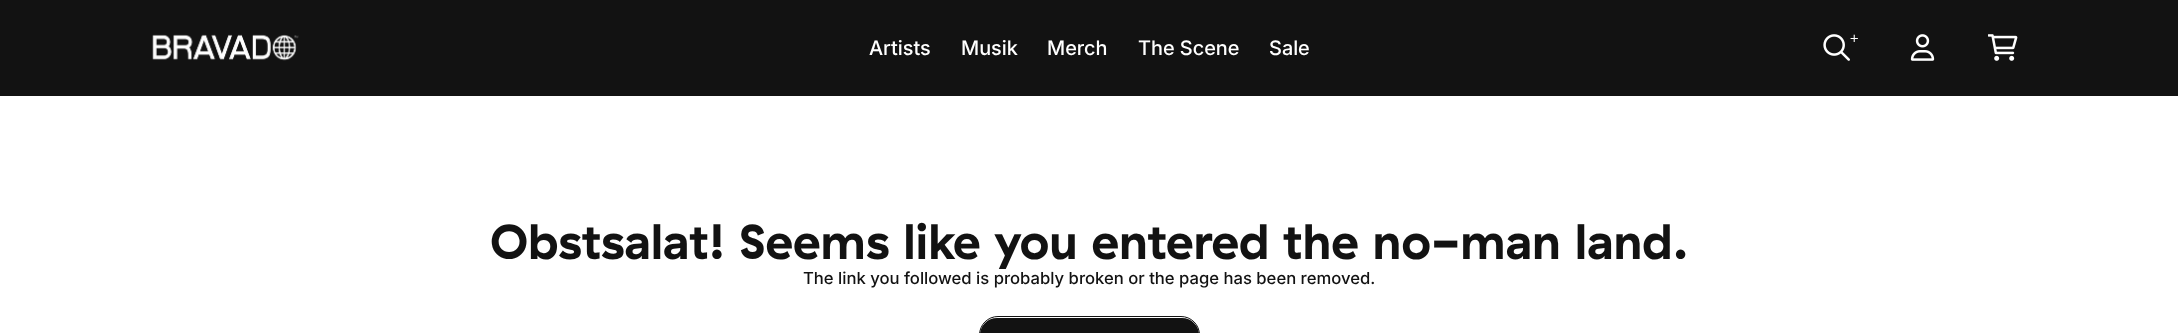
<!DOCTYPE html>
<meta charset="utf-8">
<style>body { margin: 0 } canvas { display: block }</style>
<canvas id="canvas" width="2178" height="333"></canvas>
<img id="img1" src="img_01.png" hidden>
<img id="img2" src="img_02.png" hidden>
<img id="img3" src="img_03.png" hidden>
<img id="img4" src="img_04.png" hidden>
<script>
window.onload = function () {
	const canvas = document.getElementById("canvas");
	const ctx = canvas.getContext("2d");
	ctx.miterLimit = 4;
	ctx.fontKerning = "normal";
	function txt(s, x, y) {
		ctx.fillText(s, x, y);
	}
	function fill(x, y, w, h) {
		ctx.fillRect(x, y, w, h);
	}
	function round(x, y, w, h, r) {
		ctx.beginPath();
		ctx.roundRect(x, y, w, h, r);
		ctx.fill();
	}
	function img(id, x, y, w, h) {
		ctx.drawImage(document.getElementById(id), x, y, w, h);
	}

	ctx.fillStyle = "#FFFFFF";
	fill(0, 0, 2178, 333);
	ctx.fillStyle = "#121212";
	fill(0, 0, 2178, 96);
	img("img1", 152, 34, 147, 27);
	img("img2", 1823, 34, 27, 27);
	img("img3", 1910, 34, 25, 27);
	img("img4", 1988, 34, 30, 27);
	round(980, 318, 219, 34, 19);
	ctx.beginPath();
	ctx.roundRect(979.5, 316.5, 220, 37, 19.5);
	ctx.strokeStyle = "#121212";
	ctx.stroke();
	ctx.font = "500 20px 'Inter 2'";
	ctx.fillStyle = "#FFFFFF";
	txt("Artists", 869, 55);
	txt("Musik", 961, 55);
	txt("Merch", 1047, 55);
	txt("The Scene", 1138, 55);
	txt("Sale", 1269, 55);
	ctx.font = "300 16px Inter";
	txt("+", 1849, 43);
	ctx.letterSpacing = "-0.25px";
	ctx.font = "bold 49.75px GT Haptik";
	ctx.fillStyle = "#121212";
	txt("Obstsalat! Seems like you entered the no-man land.", 490, 259);
	ctx.letterSpacing = "0px";
	ctx.font = "500 16.65px Inter";
	txt("The link you followed is probably broken or the page has been removed.", 803, 284);
};
</script>
